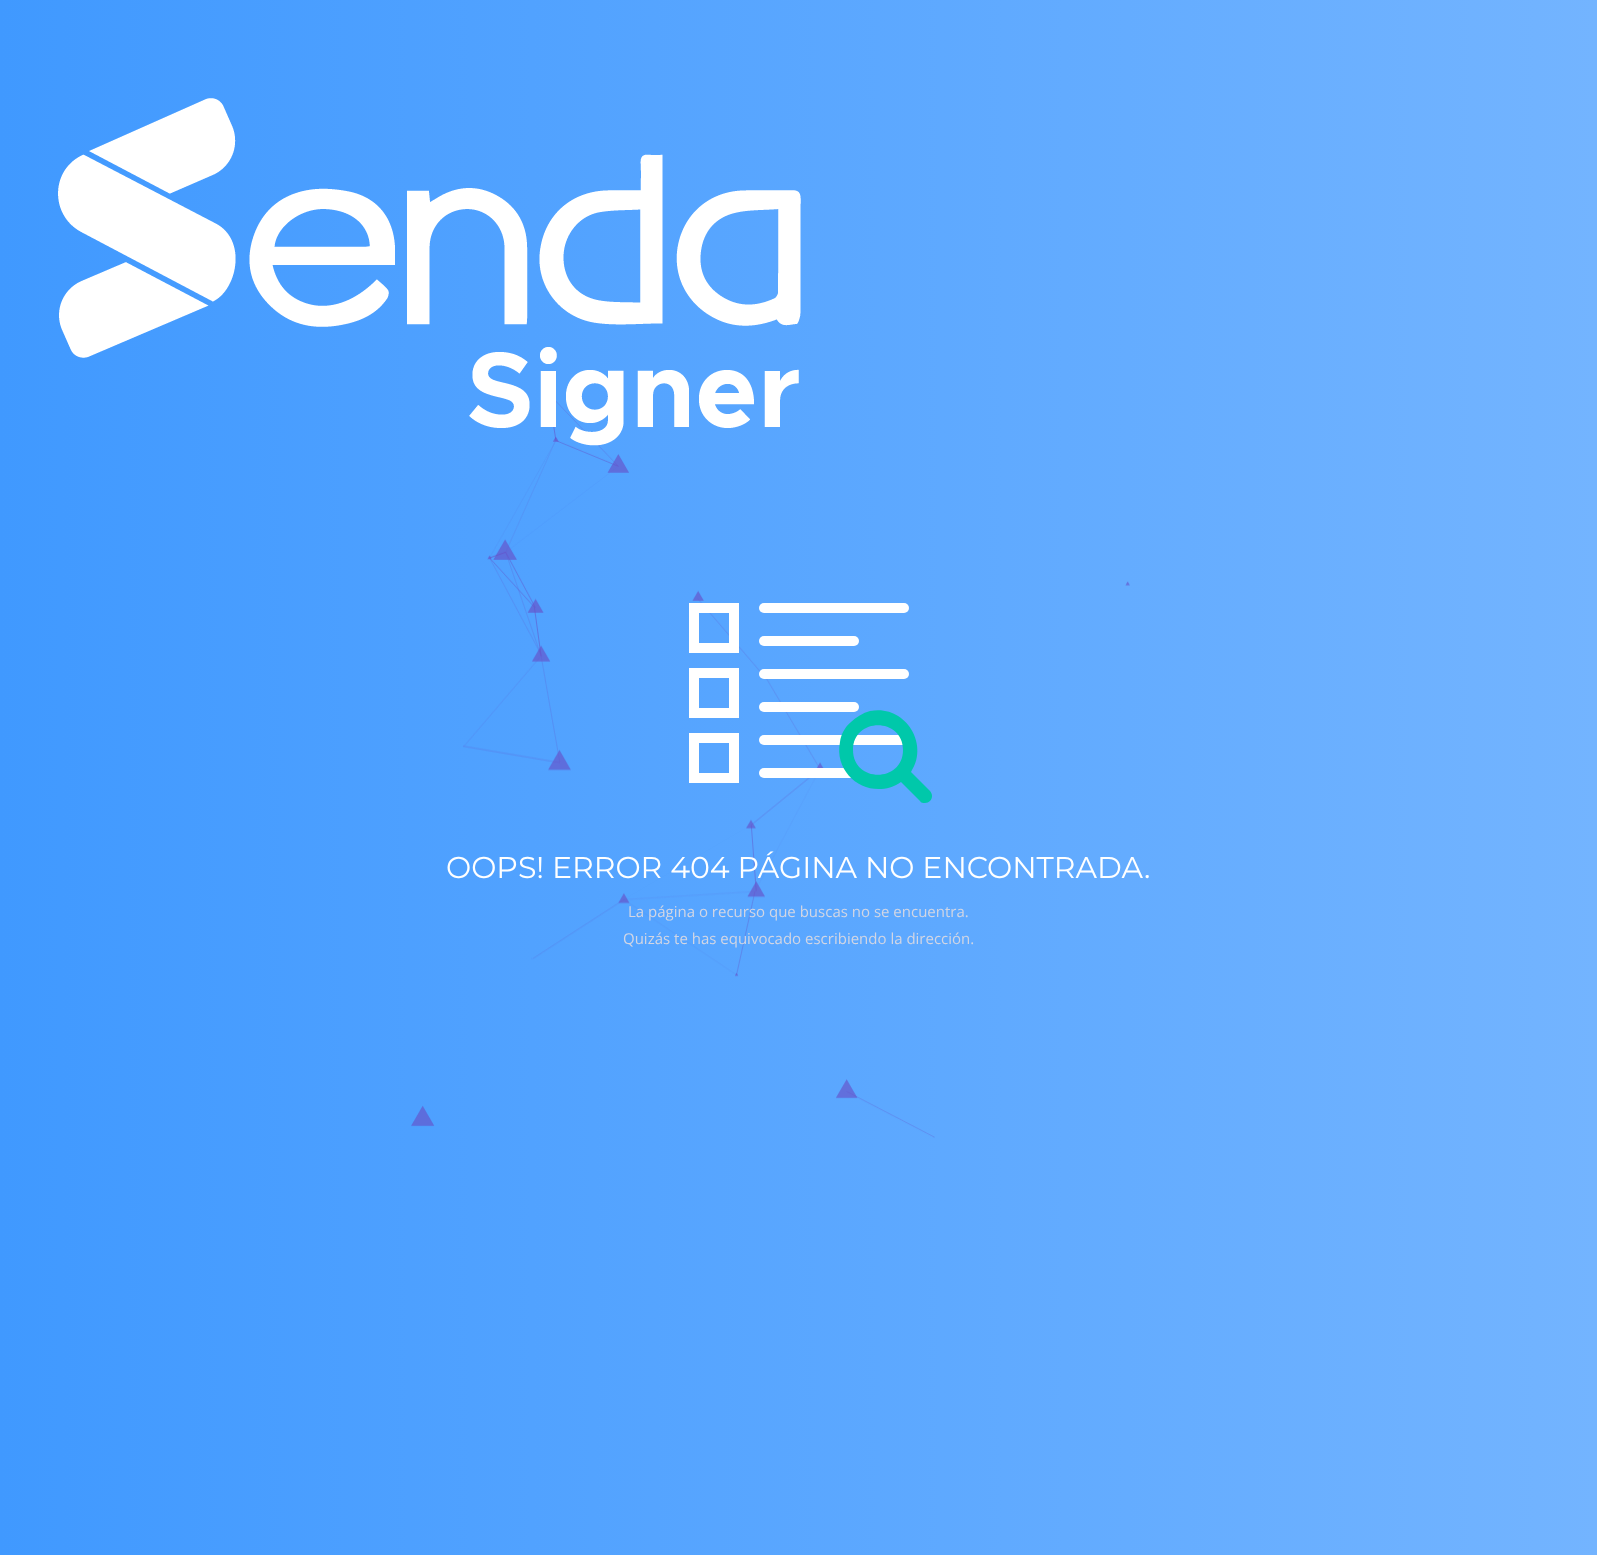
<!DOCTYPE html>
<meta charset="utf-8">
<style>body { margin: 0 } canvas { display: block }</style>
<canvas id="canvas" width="1597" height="1555"></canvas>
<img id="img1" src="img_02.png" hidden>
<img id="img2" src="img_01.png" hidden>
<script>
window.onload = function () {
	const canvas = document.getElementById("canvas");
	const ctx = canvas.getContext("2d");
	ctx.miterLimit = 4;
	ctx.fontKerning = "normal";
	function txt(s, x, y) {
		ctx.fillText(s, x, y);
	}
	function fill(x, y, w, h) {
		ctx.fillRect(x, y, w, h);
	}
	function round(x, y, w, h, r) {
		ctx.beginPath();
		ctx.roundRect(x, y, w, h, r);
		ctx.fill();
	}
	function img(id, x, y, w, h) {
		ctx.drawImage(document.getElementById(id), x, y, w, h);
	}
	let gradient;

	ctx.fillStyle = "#FFFFFF";
	fill(0, 0, 1597, 1555);
	gradient = ctx.createLinearGradient(0, 778, 1597, 778);
	gradient.addColorStop(0, "#4099FF");
	gradient.addColorStop(1, "#73B4FF");
	ctx.fillStyle = gradient;
	fill(0, 0, 1597, 1555);
	img("img1", 411, 401, 719, 737);
	img("img2", 58, 98, 743, 348);
	ctx.beginPath();
	ctx.rect(694, 608, 40, 40);
	ctx.strokeStyle = "#FFFFFF";
	ctx.lineWidth = 10;
	ctx.stroke();
	ctx.beginPath();
	ctx.rect(694, 673, 40, 40);
	ctx.stroke();
	ctx.beginPath();
	ctx.rect(694, 738, 40, 40);
	ctx.stroke();
	ctx.fillStyle = "#FFFFFF";
	round(759, 603, 150, 10, 5);
	round(759, 636, 100, 10, 5);
	round(759, 669, 150, 10, 5);
	round(759, 702, 100, 10, 5);
	round(759, 735, 150, 10, 5);
	round(759, 768, 100, 10, 5);
	ctx.fillStyle = "#00C8AA";
	ctx.beginPath();
	ctx.moveTo(903, 750);
	ctx.bezierCurveTo(903, 783, 853, 783, 853, 750);
	ctx.bezierCurveTo(853, 717, 903, 717, 903, 750);
	ctx.closePath();
	ctx.moveTo(932, 796);
	ctx.bezierCurveTo(932, 794, 931, 792, 930, 791);
	ctx.lineTo(911, 772);
	ctx.bezierCurveTo(930, 744, 905, 704, 870, 711);
	ctx.bezierCurveTo(863, 713, 856, 717, 851, 722);
	ctx.bezierCurveTo(845, 727, 841, 734, 840, 742);
	ctx.bezierCurveTo(833, 777, 872, 802, 901, 782);
	ctx.lineTo(920, 801);
	ctx.bezierCurveTo(921, 803, 923, 803, 925, 803);
	ctx.bezierCurveTo(929, 803, 932, 800, 932, 796);
	ctx.closePath();
	ctx.fill();
	ctx.font = "100 30px Montserrat";
	ctx.fillStyle = "#FFFFFF";
	txt("OOPS! ERROR 404 PÁGINA NO ENCONTRADA.", 446, 878);
	ctx.font = "15px Open Sans";
	ctx.fillStyle = "#D2D6E4";
	txt("La página o recurso que buscas no se encuentra.", 628, 917);
	txt("Quizás te has equivocado escribiendo la dirección.", 623, 944);
};
</script>
